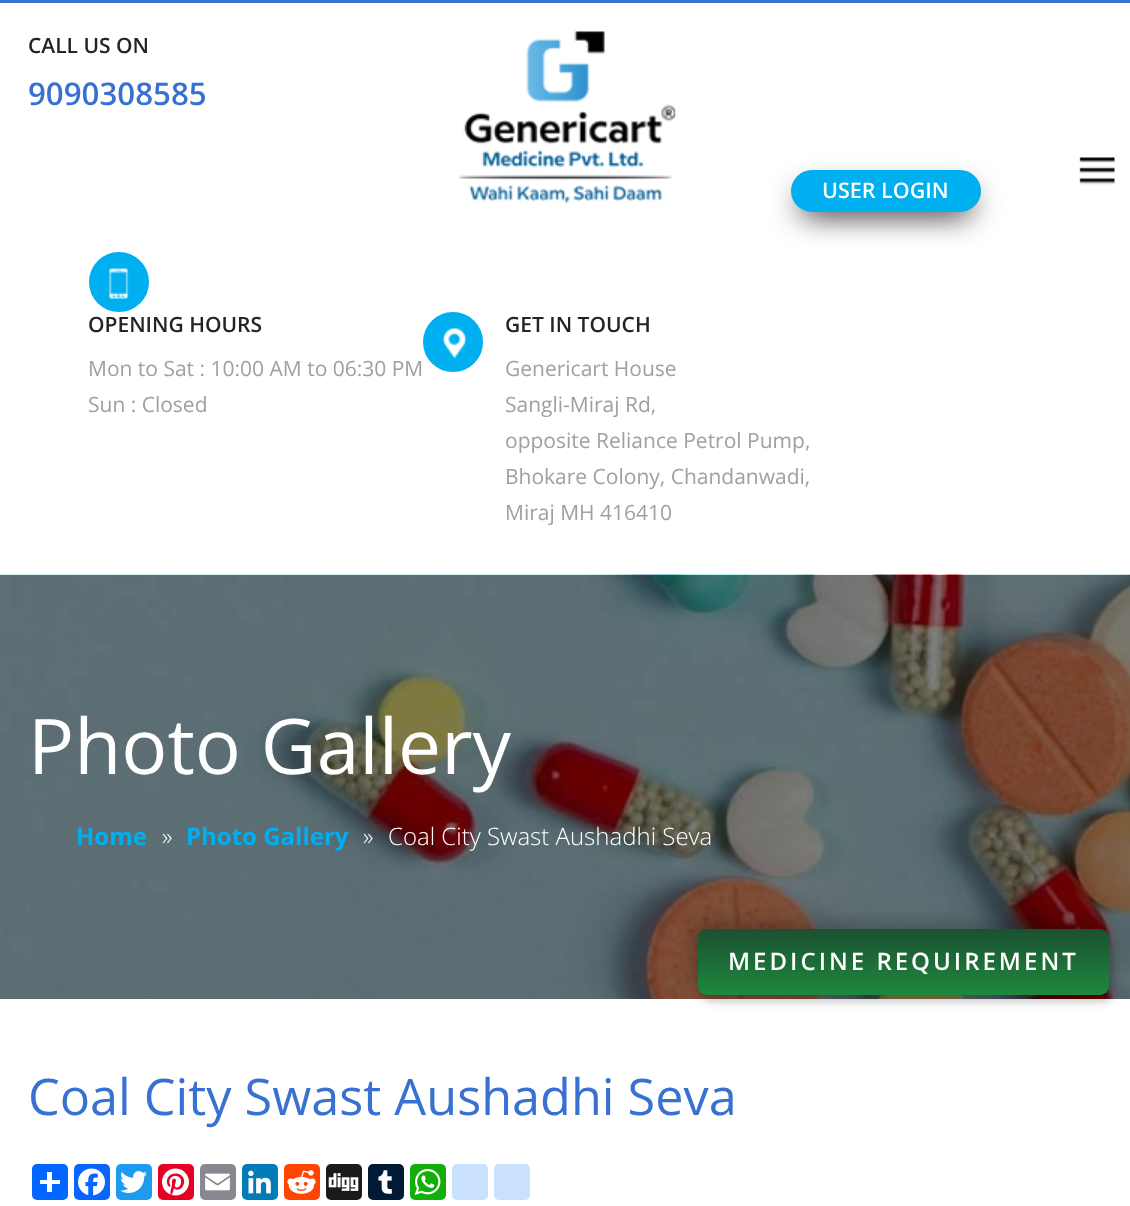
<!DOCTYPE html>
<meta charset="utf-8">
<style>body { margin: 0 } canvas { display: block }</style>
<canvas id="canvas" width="1130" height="1206"></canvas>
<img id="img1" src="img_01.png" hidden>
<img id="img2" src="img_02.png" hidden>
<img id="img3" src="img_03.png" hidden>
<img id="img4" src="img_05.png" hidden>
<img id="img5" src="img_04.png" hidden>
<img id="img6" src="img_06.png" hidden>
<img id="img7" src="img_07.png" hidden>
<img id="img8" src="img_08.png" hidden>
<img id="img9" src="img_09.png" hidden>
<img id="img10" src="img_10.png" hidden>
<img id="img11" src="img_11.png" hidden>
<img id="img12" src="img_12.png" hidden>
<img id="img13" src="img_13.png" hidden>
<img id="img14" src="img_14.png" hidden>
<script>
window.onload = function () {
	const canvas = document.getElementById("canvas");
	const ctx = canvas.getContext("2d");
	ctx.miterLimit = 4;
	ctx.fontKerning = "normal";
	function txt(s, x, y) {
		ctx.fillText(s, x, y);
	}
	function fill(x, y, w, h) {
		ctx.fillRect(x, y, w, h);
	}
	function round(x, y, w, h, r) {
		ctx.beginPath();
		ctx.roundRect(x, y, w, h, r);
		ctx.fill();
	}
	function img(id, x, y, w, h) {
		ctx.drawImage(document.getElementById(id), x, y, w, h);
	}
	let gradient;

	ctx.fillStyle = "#FFFFFF";
	fill(0, 0, 1130, 1206);
	ctx.fillStyle = "#3871D1";
	fill(0, 0, 1130, 3);
	img("img1", 459, 31, 217, 176);
	ctx.fillStyle = "#00AFEF";
	ctx.beginPath();
	ctx.arc(119, 282, 29, 0, Math.PI * 2);
	ctx.fill();
	ctx.strokeStyle = "#00AFEF";
	ctx.lineWidth = 2;
	ctx.stroke();
	img("img2", 108, 268, 21, 31);
	ctx.beginPath();
	ctx.arc(453, 342, 29, 0, Math.PI * 2);
	ctx.fill();
	ctx.stroke();
	img("img3", 442, 328, 25, 31);
	img("img4", 0, 574, 1130, 425);
	ctx.fillStyle = "rgba(0, 0, 0, 0.2)";
	ctx.filter = "blur(4px)";
	ctx.beginPath();
	ctx.roundRect(702, 936, 411, 66, 9);
	ctx.fill();
	ctx.filter = "none";
	ctx.filter = "blur(7.5px)";
	ctx.beginPath();
	ctx.roundRect(693, 921, 411, 66, 9);
	ctx.fill();
	ctx.filter = "none";
	gradient = ctx.createLinearGradient(903, 929, 903, 995);
	gradient.addColorStop(0, "#1B5131");
	gradient.addColorStop(1, "#1E883E");
	ctx.fillStyle = gradient;
	round(698, 929, 411, 66, 9);
	img("img5", 1079, 157, 36, 28);
	ctx.fillStyle = "#1B1B1B";
	ctx.filter = "blur(15px)";
	ctx.beginPath();
	ctx.roundRect(800, 191, 172, 24, 12);
	ctx.fill();
	ctx.filter = "none";
	ctx.fillStyle = "#00AFEF";
	ctx.beginPath();
	ctx.roundRect(792, 171, 188, 40, 20);
	ctx.fill();
	ctx.stroke();
	ctx.fillStyle = "#0166FF";
	round(32, 1164, 36, 36, 5);
	ctx.fillStyle = "#FFFFFF";
	fill(47, 1172, 5, 20);
	fill(40, 1180, 20, 4);
	ctx.fillStyle = "#0866FF";
	round(74, 1164, 36, 36, 5);
	img("img6", 78, 1168, 27, 28);
	ctx.fillStyle = "#1D9BF0";
	round(116, 1164, 36, 36, 5);
	img("img7", 120, 1171, 27, 22);
	ctx.fillStyle = "#E60023";
	round(158, 1164, 36, 36, 5);
	img("img8", 162, 1168, 27, 28);
	ctx.fillStyle = "#888990";
	round(200, 1164, 36, 36, 5);
	img("img9", 205, 1173, 25, 18);
	ctx.fillStyle = "#007BB5";
	round(242, 1164, 36, 36, 5);
	img("img10", 248, 1170, 23, 24);
	ctx.fillStyle = "#FF4500";
	round(284, 1164, 36, 36, 5);
	img("img11", 287, 1170, 29, 24);
	ctx.fillStyle = "#1A1A1A";
	round(326, 1164, 36, 36, 5);
	img("img12", 328, 1173, 31, 18);
	ctx.fillStyle = "#001935";
	round(368, 1164, 36, 36, 5);
	img("img13", 378, 1170, 14, 24);
	ctx.fillStyle = "#12AF0A";
	round(410, 1164, 36, 36, 5);
	img("img14", 414, 1169, 27, 26);
	ctx.fillStyle = "#CAE0FF";
	round(452, 1164, 36, 36, 5);
	round(494, 1164, 36, 36, 5);
	ctx.font = "600 21px Open Sans";
	ctx.fillStyle = "#212529";
	txt("CALL US ON", 28, 53);
	ctx.font = "600 31.25px Open Sans";
	ctx.fillStyle = "#3871D1";
	txt("9090308585", 28, 105);
	ctx.font = "600 21px Open Sans";
	ctx.fillStyle = "#212529";
	txt("OPENING HOURS", 88, 332);
	ctx.font = "21px Open Sans";
	ctx.fillStyle = "#A1A0A0";
	txt("Mon to Sat : 10:00 AM to 06:30 PM", 88, 376);
	txt("Sun : Closed", 88, 412);
	ctx.font = "600 21px Open Sans";
	ctx.fillStyle = "#212529";
	txt("GET IN TOUCH", 505, 332);
	ctx.font = "21px Open Sans";
	ctx.fillStyle = "#A1A0A0";
	txt("Genericart House", 505, 376);
	txt("Sangli-Miraj Rd,", 505, 412);
	txt("opposite Reliance Petrol Pump,", 505, 448);
	txt("Bhokare Colony, Chandanwadi,", 505, 484);
	txt("Miraj MH 416410", 505, 520);
	ctx.letterSpacing = "3px";
	ctx.font = "600 24px Open Sans";
	ctx.fillStyle = "#FFFFFF";
	txt("MEDICINE REQUIREMENT", 728, 970);
	ctx.letterSpacing = "0px";
	ctx.font = "600 21.5px Open Sans";
	txt("USER LOGIN", 822, 198);
	ctx.font = "76.75px Open Sans";
	txt("Photo Gallery", 28, 774);
	ctx.font = "bold 24px Open Sans";
	ctx.fillStyle = "#00AFEF";
	txt("Home", 76, 845);
	ctx.font = "300 24px Open Sans";
	ctx.fillStyle = "#FFFFFF";
	txt("»", 162, 845);
	ctx.font = "bold 24px Open Sans";
	ctx.fillStyle = "#00AFEF";
	txt("Photo Gallery", 186, 845);
	ctx.font = "300 24px Open Sans";
	ctx.fillStyle = "#FFFFFF";
	txt("»", 363, 845);
	txt("Coal City Swast Aushadhi Seva", 388, 845);
	ctx.font = "50.4px Open Sans";
	ctx.fillStyle = "#3871D1";
	txt("Coal City Swast Aushadhi Seva", 28, 1115);
};
</script>
